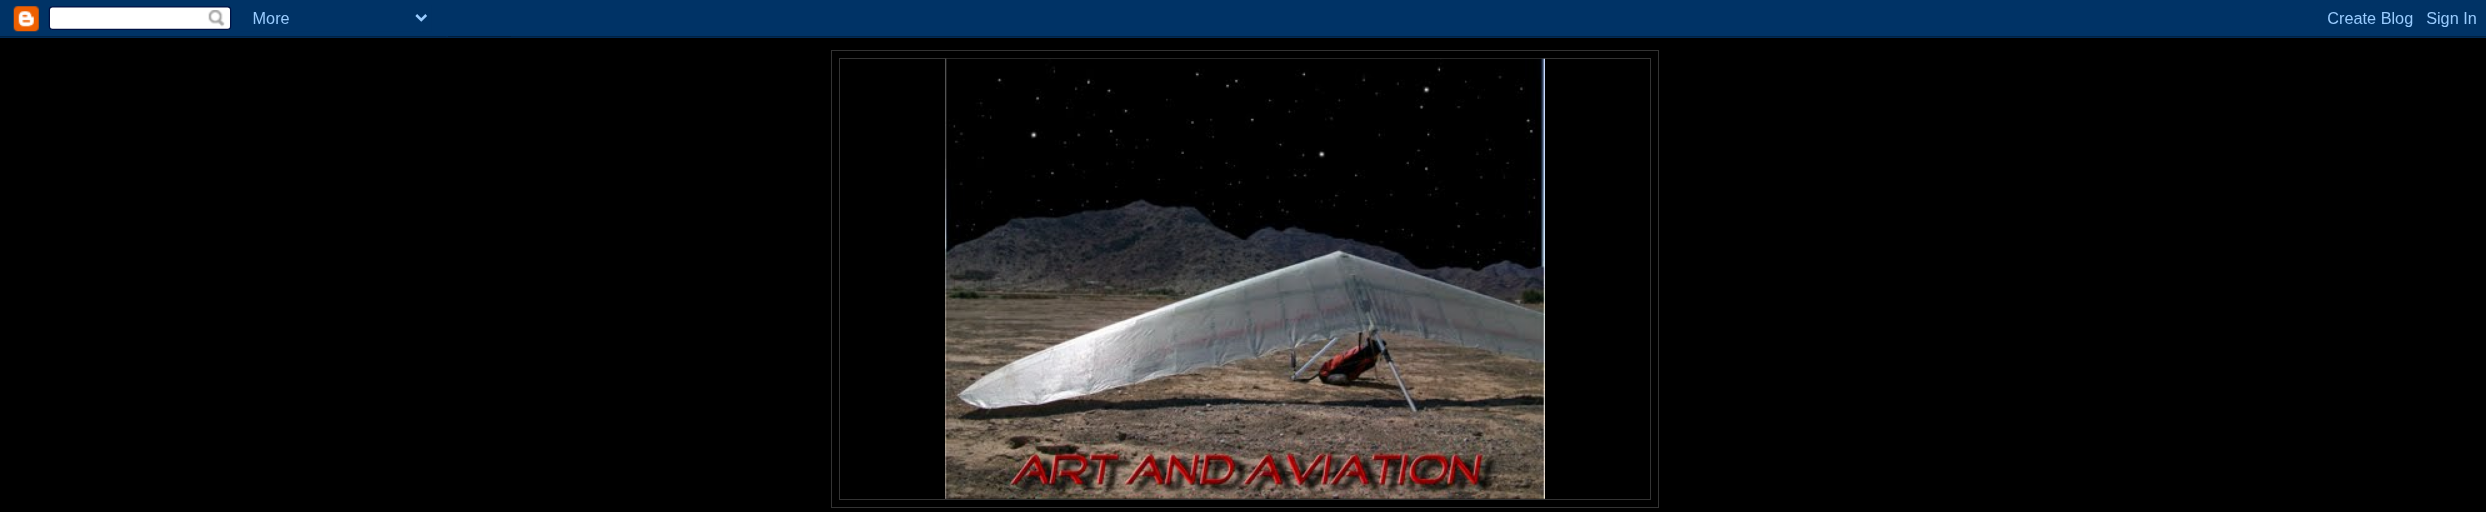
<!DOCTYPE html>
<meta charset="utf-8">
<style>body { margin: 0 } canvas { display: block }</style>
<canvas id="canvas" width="2486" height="512"></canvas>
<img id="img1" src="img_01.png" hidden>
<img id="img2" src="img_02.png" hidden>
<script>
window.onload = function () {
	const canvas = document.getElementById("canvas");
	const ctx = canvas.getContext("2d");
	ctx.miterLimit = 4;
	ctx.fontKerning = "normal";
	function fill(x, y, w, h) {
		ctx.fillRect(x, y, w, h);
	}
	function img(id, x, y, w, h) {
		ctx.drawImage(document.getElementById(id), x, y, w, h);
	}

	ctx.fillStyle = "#000000";
	fill(0, 0, 2486, 512);
	img("img1", 0, 0, 2486, 38);
	ctx.strokeStyle = "#333333";
	ctx.strokeRect(831.5, 50.5, 827, 457);
	ctx.strokeRect(839.5, 58.5, 811, 441);
	img("img2", 945, 58, 600, 441);
};
</script>
